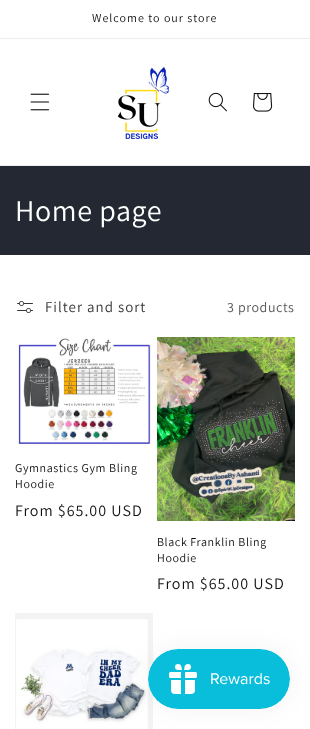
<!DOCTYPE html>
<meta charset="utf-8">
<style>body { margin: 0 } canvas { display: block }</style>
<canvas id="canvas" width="310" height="729"></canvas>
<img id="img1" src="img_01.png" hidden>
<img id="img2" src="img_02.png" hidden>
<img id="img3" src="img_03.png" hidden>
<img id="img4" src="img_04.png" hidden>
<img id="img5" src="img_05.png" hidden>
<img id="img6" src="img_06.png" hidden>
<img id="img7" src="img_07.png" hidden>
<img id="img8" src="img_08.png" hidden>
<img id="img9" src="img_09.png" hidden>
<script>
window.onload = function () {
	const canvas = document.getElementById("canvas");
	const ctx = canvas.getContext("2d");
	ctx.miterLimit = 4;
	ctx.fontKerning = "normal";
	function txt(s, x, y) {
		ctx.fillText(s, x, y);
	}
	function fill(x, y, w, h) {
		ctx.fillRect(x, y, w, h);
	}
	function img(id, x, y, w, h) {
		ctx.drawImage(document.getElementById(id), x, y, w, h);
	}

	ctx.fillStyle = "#FFFFFF";
	fill(0, 0, 310, 729);
	ctx.fillStyle = "#ECECEC";
	fill(0, 38, 310, 1);
	fill(0, 165, 310, 1);
	img("img1", 30, 93, 20, 18);
	img("img2", 117, 67, 53, 73);
	img("img3", 208, 92, 19, 20);
	img("img4", 253, 93, 20, 19);
	ctx.fillStyle = "#242833";
	fill(0, 166, 310, 89);
	img("img5", 17, 301, 16, 12);
	img("img6", 15, 337, 138, 110);
	img("img7", 157, 337, 138, 184);
	ctx.fillStyle = "#F3F3F3";
	fill(15, 613, 138, 116);
	img("img8", 16, 619, 132, 110);
	ctx.fillStyle = "rgba(0, 0, 0, 0.05)";
	ctx.filter = "blur(12.5px)";
	ctx.beginPath();
	ctx.roundRect(148, 649, 142, 60, 30);
	ctx.fill();
	ctx.filter = "none";
	img("img9", 148, 649, 142, 60);
	ctx.letterSpacing = "1px";
	ctx.font = "12px Assistant";
	ctx.fillStyle = "#121212";
	txt("Welcome to our store", 92, 22);
	ctx.letterSpacing = "0.6px";
	ctx.font = "30px Assistant";
	ctx.fillStyle = "#FFFFFF";
	txt("Home page", 15, 221);
	ctx.letterSpacing = "1px";
	ctx.font = "15px Assistant";
	ctx.fillStyle = "#363636";
	txt("Filter and sort", 45, 312);
	ctx.letterSpacing = "0.6px";
	ctx.font = "14px Assistant";
	ctx.fillStyle = "#595959";
	txt("3 products", 227, 312);
	ctx.font = "12px Assistant";
	ctx.fillStyle = "#121212";
	txt("Gymnastics Gym Bling", 15, 472);
	txt("Hoodie", 15, 488);
	ctx.letterSpacing = "1px";
	ctx.font = "16px Assistant";
	txt("From $65.00 USD", 15, 516);
	ctx.letterSpacing = "0.6px";
	ctx.font = "12px Assistant";
	txt("Black Franklin Bling", 157, 546);
	txt("Hoodie", 157, 562);
	ctx.letterSpacing = "1px";
	ctx.font = "16px Assistant";
	txt("From $65.00 USD", 157, 589);
};
</script>
